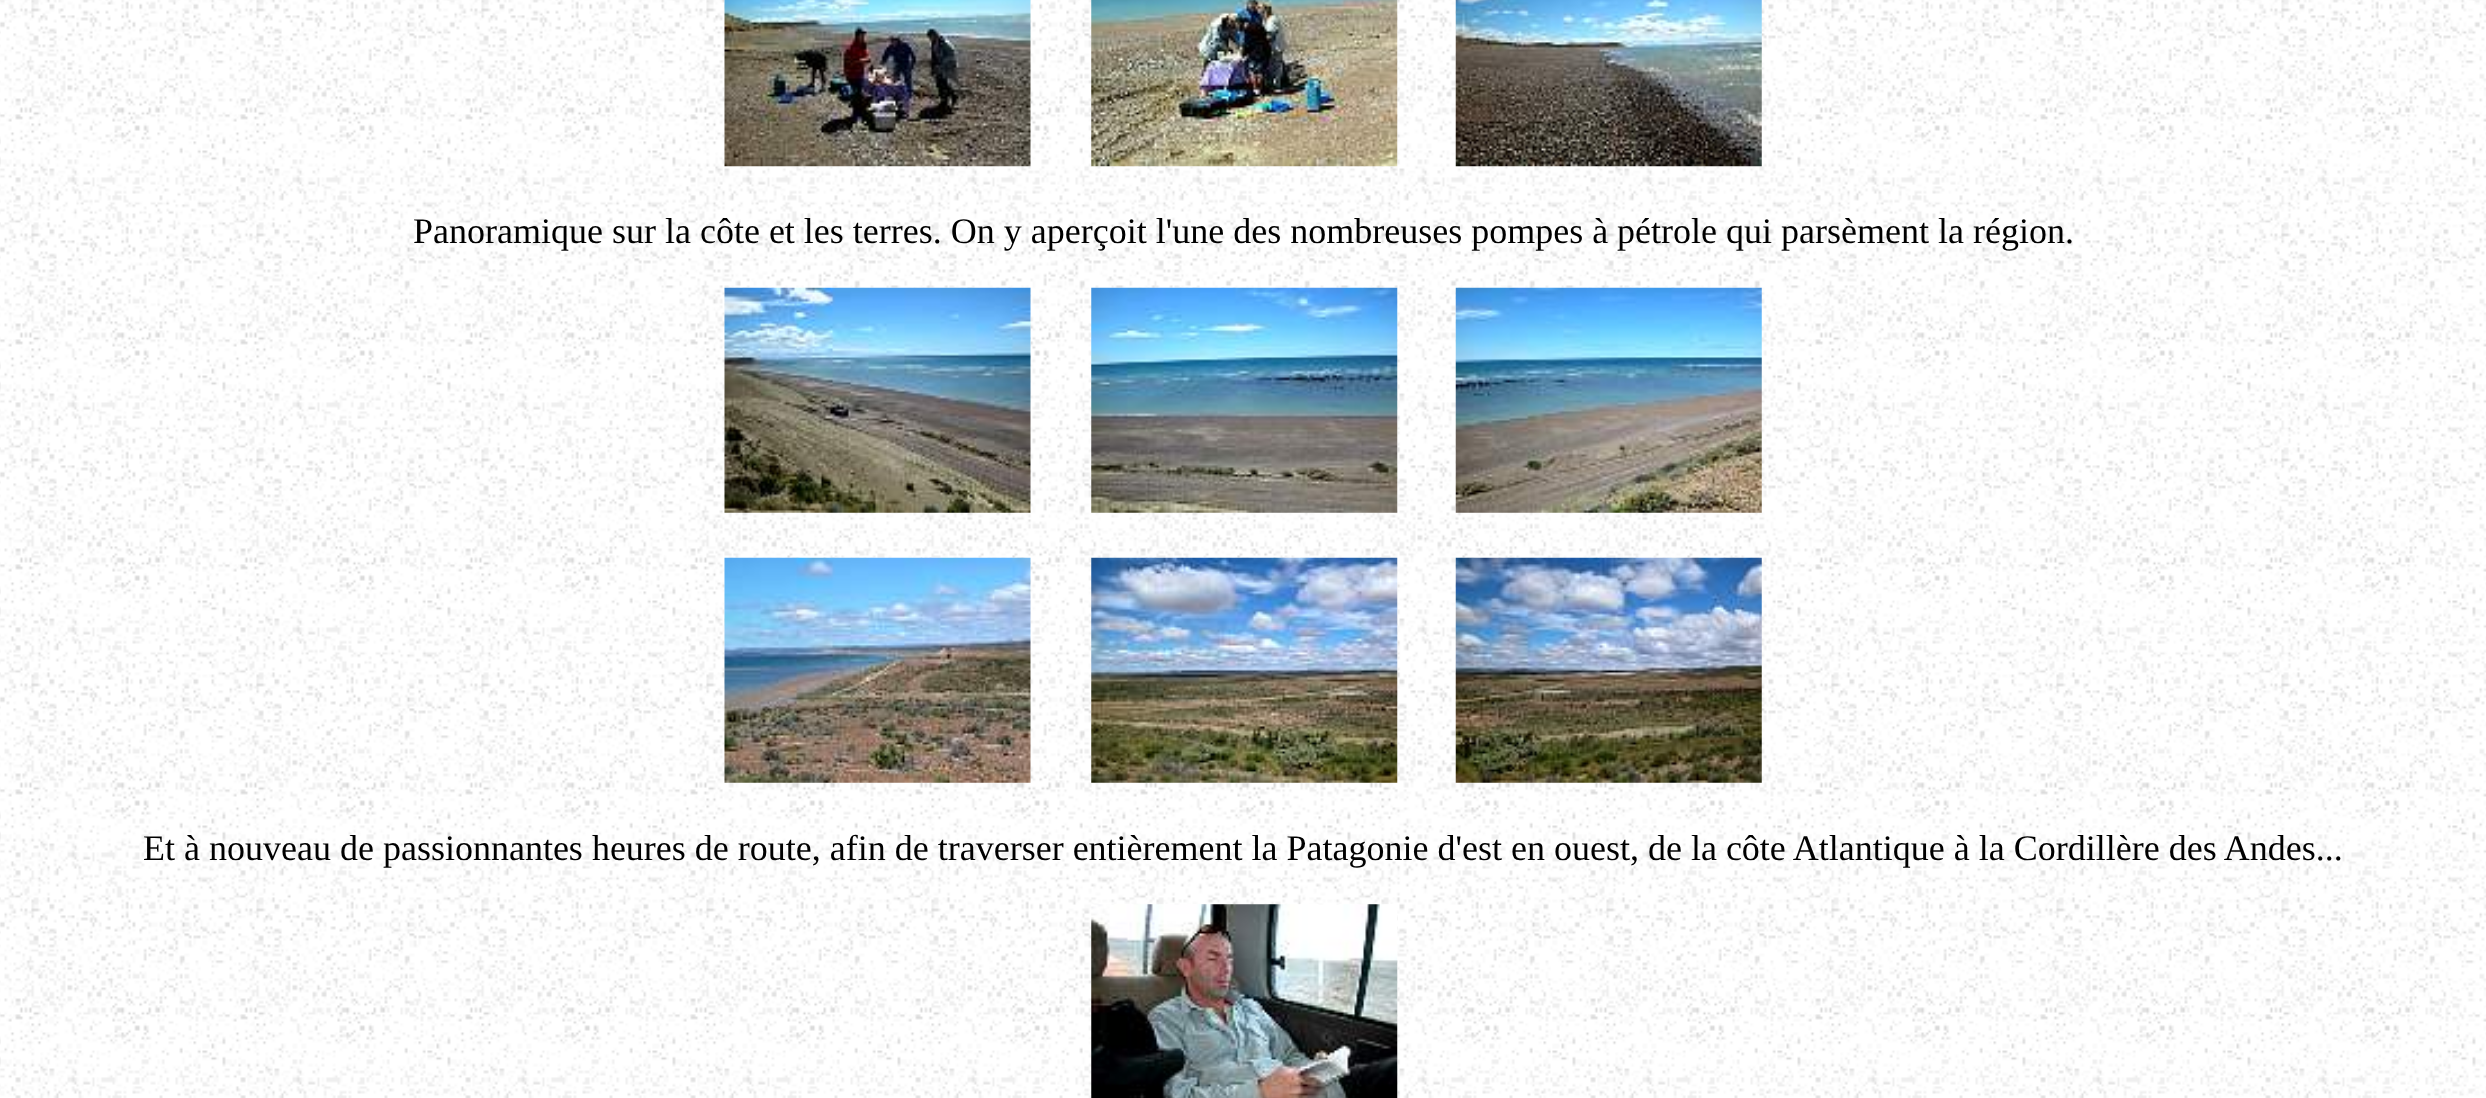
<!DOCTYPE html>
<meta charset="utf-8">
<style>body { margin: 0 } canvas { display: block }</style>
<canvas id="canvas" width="2486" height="1098"></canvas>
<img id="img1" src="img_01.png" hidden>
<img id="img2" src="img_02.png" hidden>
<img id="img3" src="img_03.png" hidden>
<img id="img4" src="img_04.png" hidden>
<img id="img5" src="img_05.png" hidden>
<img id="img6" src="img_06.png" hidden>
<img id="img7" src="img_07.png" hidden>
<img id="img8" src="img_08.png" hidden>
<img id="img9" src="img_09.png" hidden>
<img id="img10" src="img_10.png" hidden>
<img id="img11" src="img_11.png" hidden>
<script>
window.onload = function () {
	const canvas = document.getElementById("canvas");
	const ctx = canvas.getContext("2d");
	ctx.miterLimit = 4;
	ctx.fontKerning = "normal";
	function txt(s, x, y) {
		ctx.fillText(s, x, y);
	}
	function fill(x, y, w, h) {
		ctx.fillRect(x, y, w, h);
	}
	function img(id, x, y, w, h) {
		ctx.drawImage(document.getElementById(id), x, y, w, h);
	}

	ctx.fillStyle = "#FFFFFF";
	fill(0, 0, 2486, 1098);
	img("img1", 0, 0, 2486, 1098);
	img("img2", 724, 0, 307, 167);
	img("img3", 1091, 0, 307, 167);
	img("img4", 1455, 0, 307, 167);
	img("img5", 724, 287, 307, 226);
	img("img6", 1091, 287, 307, 226);
	img("img7", 1455, 287, 307, 226);
	img("img8", 724, 557, 307, 226);
	img("img9", 1091, 557, 307, 226);
	img("img10", 1455, 557, 307, 226);
	img("img11", 1091, 904, 307, 194);
	ctx.font = "36px Liberation Serif";
	ctx.fillStyle = "#000000";
	txt("Panoramique sur la côte et les terres. On y aperçoit l'une des nombreuses pompes à pétrole qui parsèment la région.", 413, 243);
	txt("Et à nouveau de passionnantes heures de route, afin de traverser entièrement la Patagonie d'est en ouest, de la côte Atlantique à la Cordillère des Andes...", 143, 860);
};
</script>
